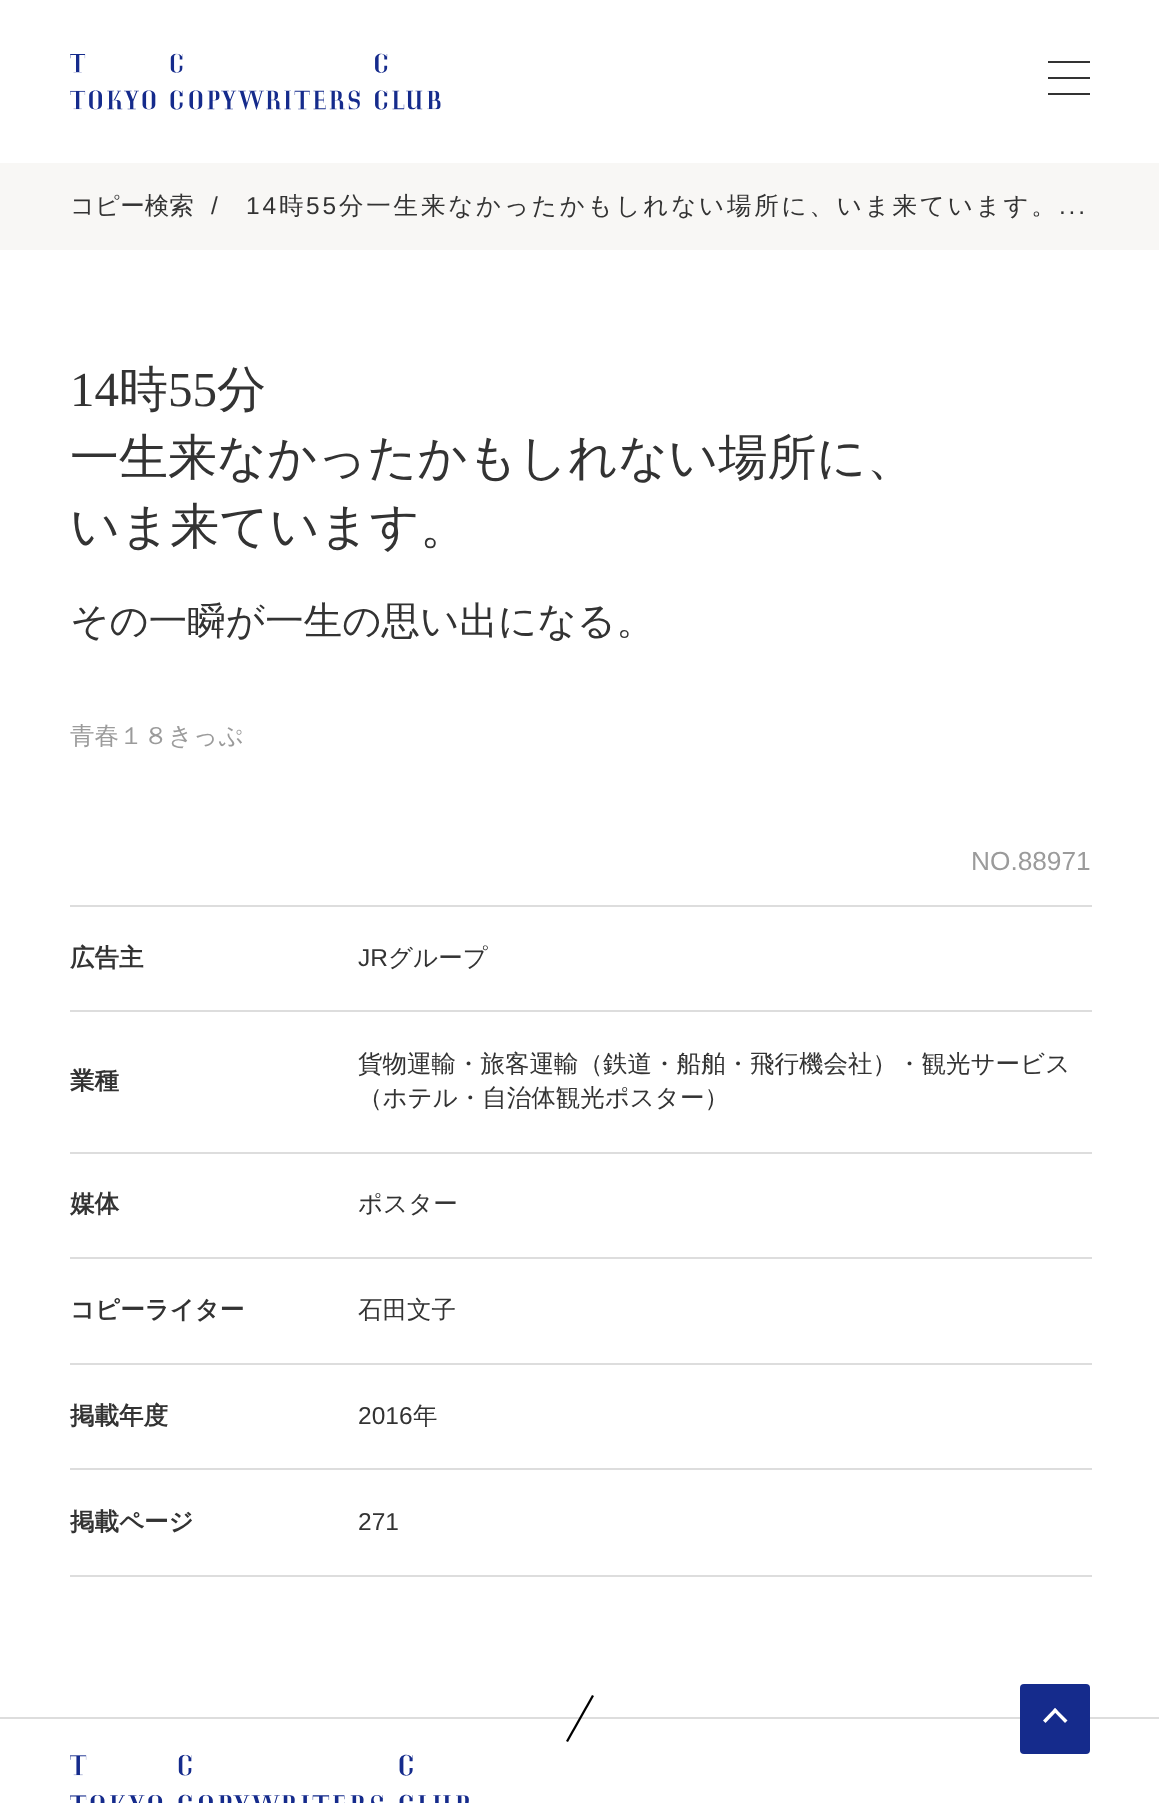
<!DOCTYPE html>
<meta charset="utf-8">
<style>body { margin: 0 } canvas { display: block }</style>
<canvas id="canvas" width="1159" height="1803"></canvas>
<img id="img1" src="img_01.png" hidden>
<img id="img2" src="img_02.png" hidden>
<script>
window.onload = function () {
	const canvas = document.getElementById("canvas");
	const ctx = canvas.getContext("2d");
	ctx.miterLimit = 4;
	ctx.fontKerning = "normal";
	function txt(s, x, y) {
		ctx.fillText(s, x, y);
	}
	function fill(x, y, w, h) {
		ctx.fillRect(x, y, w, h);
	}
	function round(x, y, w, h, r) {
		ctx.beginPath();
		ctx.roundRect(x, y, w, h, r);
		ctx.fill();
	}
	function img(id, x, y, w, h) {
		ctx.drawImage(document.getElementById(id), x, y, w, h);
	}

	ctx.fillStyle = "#FFFFFF";
	fill(0, 0, 1159, 1803);
	img("img1", 70, 53, 371, 57);
	ctx.fillStyle = "#333333";
	fill(1048, 61, 42, 2);
	fill(1048, 77, 42, 2);
	fill(1048, 93, 42, 2);
	ctx.fillStyle = "#F8F7F5";
	fill(0, 163, 1159, 87);
	ctx.fillStyle = "#DDDDDD";
	fill(70, 905, 1022, 2);
	fill(70, 1010, 1022, 2);
	fill(70, 1152, 1022, 2);
	fill(70, 1257, 1022, 2);
	fill(70, 1363, 1022, 2);
	fill(70, 1468, 1022, 2);
	fill(70, 1575, 1022, 2);
	fill(0, 1717, 1159, 2);
	ctx.fillStyle = "#152B8C";
	round(1020, 1684, 70, 70, 4);
	ctx.fillStyle = "#FFFFFF";
	ctx.beginPath();
	ctx.moveTo(1055, 1708);
	ctx.lineTo(1067.5, 1720.5);
	ctx.lineTo(1065, 1723);
	ctx.lineTo(1053, 1710.5);
	ctx.closePath();
	ctx.fill();
	ctx.beginPath();
	ctx.moveTo(1055, 1708);
	ctx.lineTo(1057.5, 1710.5);
	ctx.lineTo(1045.5, 1723);
	ctx.lineTo(1043, 1720.5);
	ctx.closePath();
	ctx.fill();
	img("img2", 70, 1754, 399, 49);
	ctx.fillStyle = "#000000";
	ctx.beginPath();
	ctx.moveTo(592, 1695);
	ctx.lineTo(594, 1696);
	ctx.lineTo(568, 1742);
	ctx.lineTo(566, 1741);
	ctx.closePath();
	ctx.fill();
	ctx.font = "500 24.5px WenQuanYi Zen Hei";
	ctx.fillStyle = "#333333";
	txt("コピー検索", 70, 214);
	ctx.font = "24.5px Liberation Sans";
	txt("/", 211, 214);
	ctx.letterSpacing = "2.8px";
	txt("14", 246, 214);
	ctx.font = "500 24.5px WenQuanYi Zen Hei";
	txt("時", 279, 214);
	ctx.font = "24.5px Liberation Sans";
	txt("55", 306, 214);
	ctx.font = "500 24.5px WenQuanYi Zen Hei";
	txt("分一生来なかったかもしれない場所に、いま来ています。", 339, 214);
	ctx.font = "24.5px Liberation Sans";
	txt("...", 1059, 214);
	ctx.letterSpacing = "0px";
	ctx.font = "49px Liberation Serif";
	txt("14", 70, 406);
	ctx.font = "500 49px WenQuanYi Zen Hei";
	txt("時", 119, 406);
	ctx.font = "49px Liberation Serif";
	txt("55", 168, 406);
	ctx.font = "500 49px WenQuanYi Zen Hei";
	txt("分", 217, 406);
	txt("一生来なかったかもしれない場所に、", 70, 474);
	txt("いま来ています。", 70, 543);
	ctx.font = "500 38.5px WenQuanYi Zen Hei";
	txt("その一瞬が一生の思い出になる。", 70, 634);
	ctx.font = "500 24.5px WenQuanYi Zen Hei";
	ctx.fillStyle = "#9B9B9B";
	txt("青春１８きっぷ", 70, 744);
	ctx.font = "26.25px Liberation Sans";
	txt("NO.88971", 971, 870);
	ctx.font = "bold 24.5px WenQuanYi Zen Hei";
	ctx.fillStyle = "#333333";
	txt("広告主", 70, 966);
	ctx.font = "24.5px Liberation Sans";
	txt("JR", 358, 966);
	ctx.font = "500 24.5px WenQuanYi Zen Hei";
	txt("グループ", 388, 966);
	ctx.font = "bold 24.5px WenQuanYi Zen Hei";
	txt("業種", 70, 1089);
	ctx.font = "500 24.5px WenQuanYi Zen Hei";
	txt("貨物運輸・旅客運輸（鉄道・船舶・飛行機会社）・観光サービス", 358, 1072);
	txt("（ホテル・自治体観光ポスター）", 358, 1106);
	ctx.font = "bold 24.5px WenQuanYi Zen Hei";
	txt("媒体", 70, 1212);
	ctx.font = "500 24.5px WenQuanYi Zen Hei";
	txt("ポスター", 358, 1212);
	ctx.font = "bold 24.5px WenQuanYi Zen Hei";
	txt("コピーライター", 70, 1318);
	ctx.font = "500 24.5px WenQuanYi Zen Hei";
	txt("石田文子", 358, 1318);
	ctx.font = "bold 24.5px WenQuanYi Zen Hei";
	txt("掲載年度", 70, 1424);
	ctx.font = "24.5px Liberation Sans";
	txt("2016", 358, 1424);
	ctx.font = "500 24.5px WenQuanYi Zen Hei";
	txt("年", 413, 1424);
	ctx.font = "bold 24.5px WenQuanYi Zen Hei";
	txt("掲載ページ", 70, 1530);
	ctx.font = "24.5px Liberation Sans";
	txt("271", 358, 1530);
};
</script>
